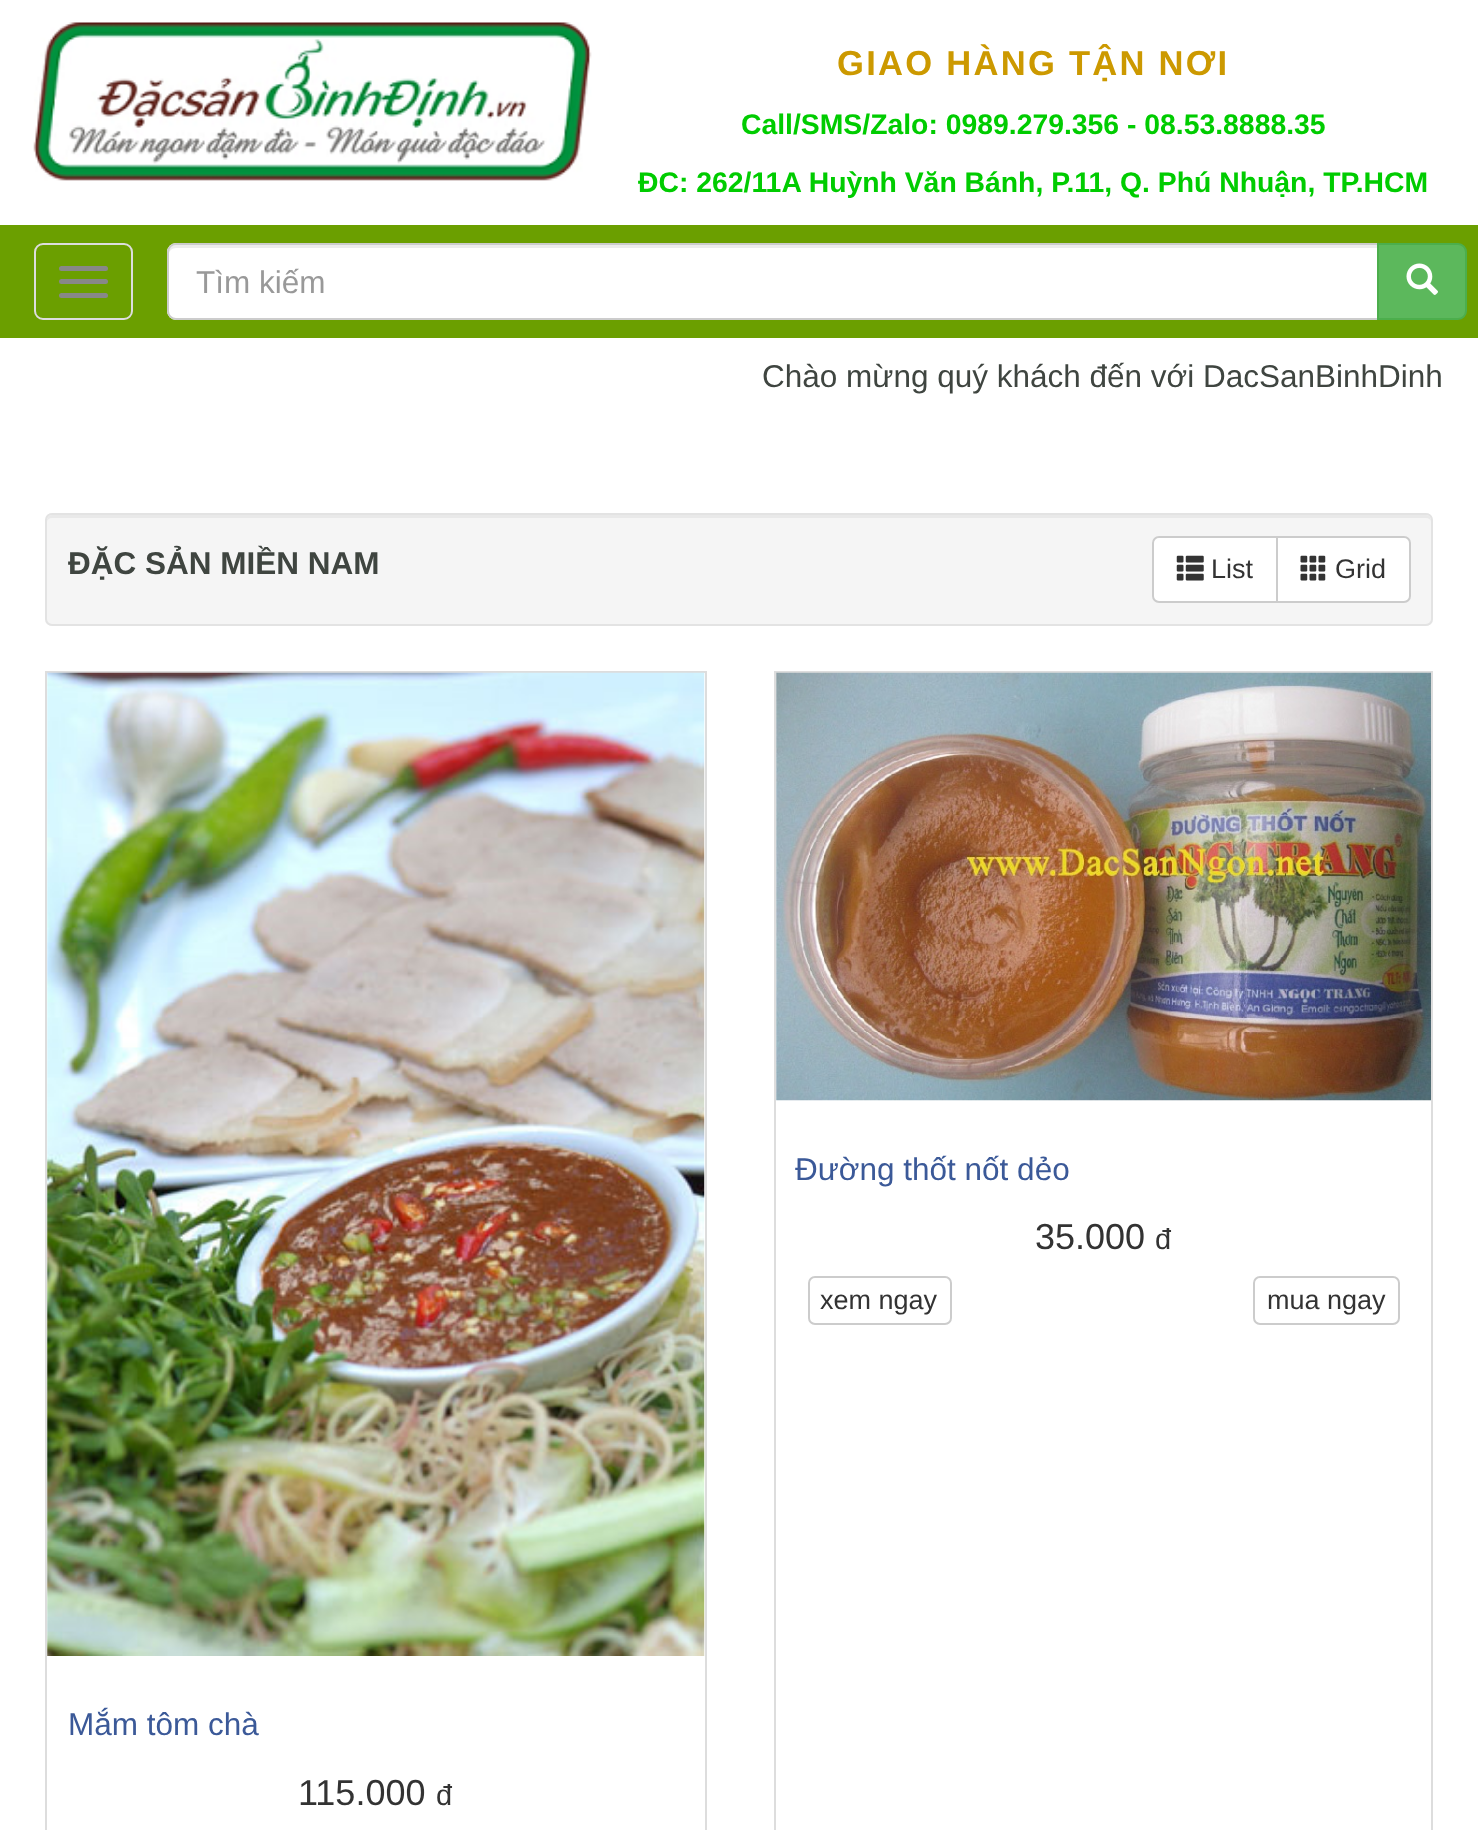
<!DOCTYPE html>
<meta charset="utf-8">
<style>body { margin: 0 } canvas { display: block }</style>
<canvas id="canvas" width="1478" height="1830"></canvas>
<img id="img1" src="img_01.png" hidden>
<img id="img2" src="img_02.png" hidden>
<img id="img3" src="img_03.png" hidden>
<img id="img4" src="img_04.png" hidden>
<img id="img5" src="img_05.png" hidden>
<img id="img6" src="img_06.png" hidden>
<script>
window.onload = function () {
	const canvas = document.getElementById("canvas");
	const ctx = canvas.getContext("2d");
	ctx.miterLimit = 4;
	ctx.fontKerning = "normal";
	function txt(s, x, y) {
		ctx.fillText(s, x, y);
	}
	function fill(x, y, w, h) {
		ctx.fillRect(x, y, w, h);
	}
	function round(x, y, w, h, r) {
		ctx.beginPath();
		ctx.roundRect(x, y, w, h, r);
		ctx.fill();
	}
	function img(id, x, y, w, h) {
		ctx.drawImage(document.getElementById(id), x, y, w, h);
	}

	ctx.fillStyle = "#FFFFFF";
	fill(0, 0, 1478, 1830);
	img("img1", 33, 22, 559, 159);
	ctx.fillStyle = "#6B9F00";
	fill(0, 225, 1478, 113);
	ctx.beginPath();
	ctx.roundRect(35, 244, 97, 75, 8);
	ctx.strokeStyle = "#DDDDDD";
	ctx.lineWidth = 2;
	ctx.stroke();
	ctx.fillStyle = "#888888";
	round(59, 266, 49, 5, 2.5);
	round(59, 279, 49, 5, 2.5);
	round(59, 293, 49, 5, 2.5);
	ctx.fillStyle = "#FFFFFF";
	ctx.beginPath();
	ctx.roundRect(167, 243, 1212, 77, [9, 0, 0, 9]);
	ctx.fill();
	ctx.fillStyle = "#ECECEC";
	ctx.beginPath();
	ctx.moveTo(176, 248);
	ctx.lineTo(1377, 248);
	ctx.lineTo(1377, 245);
	ctx.lineTo(176, 245);
	ctx.bezierCurveTo(172, 245, 169, 248, 169, 252);
	ctx.lineTo(169, 254);
	ctx.bezierCurveTo(169, 251, 172, 248, 176, 248);
	ctx.closePath();
	ctx.fill();
	ctx.beginPath();
	ctx.roundRect(168, 244, 1210, 75, [8, 0, 0, 8]);
	ctx.strokeStyle = "#CCCCCC";
	ctx.stroke();
	ctx.fillStyle = "#5CB85C";
	ctx.beginPath();
	ctx.roundRect(1378, 244, 88, 75, [0, 8, 8, 0]);
	ctx.fill();
	ctx.strokeStyle = "#4CAE4C";
	ctx.stroke();
	img("img2", 1406, 263, 32, 32);
	ctx.fillStyle = "#F5F5F5";
	round(45, 513, 1388, 113, 7);
	ctx.fillStyle = "#E9E9E9";
	ctx.beginPath();
	ctx.moveTo(52, 518);
	ctx.lineTo(1426, 518);
	ctx.bezierCurveTo(1429, 518, 1431, 520, 1431, 522);
	ctx.bezierCurveTo(1431, 519, 1430, 515, 1426, 515);
	ctx.lineTo(52, 515);
	ctx.bezierCurveTo(48, 515, 47, 519, 47, 522);
	ctx.bezierCurveTo(47, 520, 49, 518, 52, 518);
	ctx.closePath();
	ctx.fill();
	ctx.beginPath();
	ctx.roundRect(46, 514, 1386, 111, 6);
	ctx.strokeStyle = "#E3E3E3";
	ctx.stroke();
	ctx.fillStyle = "#FFFFFF";
	ctx.beginPath();
	ctx.roundRect(1153, 537, 124, 65, [6, 0, 0, 6]);
	ctx.fill();
	ctx.strokeStyle = "#CCCCCC";
	ctx.stroke();
	img("img3", 1176, 555, 28, 26);
	ctx.beginPath();
	ctx.roundRect(1277, 537, 133, 65, [0, 6, 6, 0]);
	ctx.fill();
	ctx.stroke();
	img("img4", 1300, 555, 26, 26);
	ctx.strokeStyle = "#DDDDDD";
	ctx.strokeRect(775, 672, 657, 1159);
	img("img5", 776, 672, 655, 429);
	ctx.beginPath();
	ctx.roundRect(809, 1277, 142, 47, 6);
	ctx.strokeStyle = "#CCCCCC";
	ctx.stroke();
	ctx.beginPath();
	ctx.roundRect(1254, 1277, 145, 47, 6);
	ctx.stroke();
	ctx.strokeStyle = "#DDDDDD";
	ctx.strokeRect(46, 672, 660, 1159);
	img("img6", 47, 672, 658, 984);
	ctx.letterSpacing = "2.25px";
	ctx.font = "bold 34.6px Liberation Sans";
	ctx.fillStyle = "#CC9900";
	txt("GIAO HÀNG TẬN NƠI", 837, 75);
	ctx.letterSpacing = "0px";
	ctx.font = "bold 28.35px Liberation Sans";
	ctx.fillStyle = "#00CC00";
	txt("Call/SMS/Zalo: 0989.279.356 - 08.53.8888.35", 741, 134);
	txt("ĐC: 262/11A Huỳnh Văn Bánh, P.11, Q. Phú Nhuận, TP.HCM", 638, 192);
	ctx.font = "31.5px Liberation Sans";
	ctx.fillStyle = "#999999";
	txt("Tìm kiếm", 196, 293);
	ctx.fillStyle = "#3F4540";
	txt("Chào mừng quý khách đến với DacSanBinhDinh", 762, 387);
	ctx.font = "bold 31.5px Liberation Sans";
	txt("ĐẶC SẢN MIỀN NAM", 68, 574);
	ctx.font = "27px Liberation Sans";
	ctx.fillStyle = "#333333";
	txt("List", 1211, 578);
	txt("Grid", 1335, 578);
	ctx.font = "31.5px Liberation Sans";
	ctx.fillStyle = "#3B5998";
	txt("Đường thốt nốt dẻo", 795, 1180);
	ctx.font = "36px Liberation Sans";
	ctx.fillStyle = "#333333";
	txt("35.000", 1035, 1249);
	ctx.font = "29px Liberation Sans";
	txt("đ", 1155, 1249);
	ctx.font = "27px Liberation Sans";
	txt("xem ngay", 820, 1309);
	txt("mua ngay", 1267, 1309);
	ctx.font = "31.5px Liberation Sans";
	ctx.fillStyle = "#3B5998";
	txt("Mắm tôm chà", 68, 1735);
	ctx.font = "36px Liberation Sans";
	ctx.fillStyle = "#333333";
	txt("115.000", 298, 1805);
	ctx.font = "29px Liberation Sans";
	txt("đ", 436, 1805);
};
</script>
